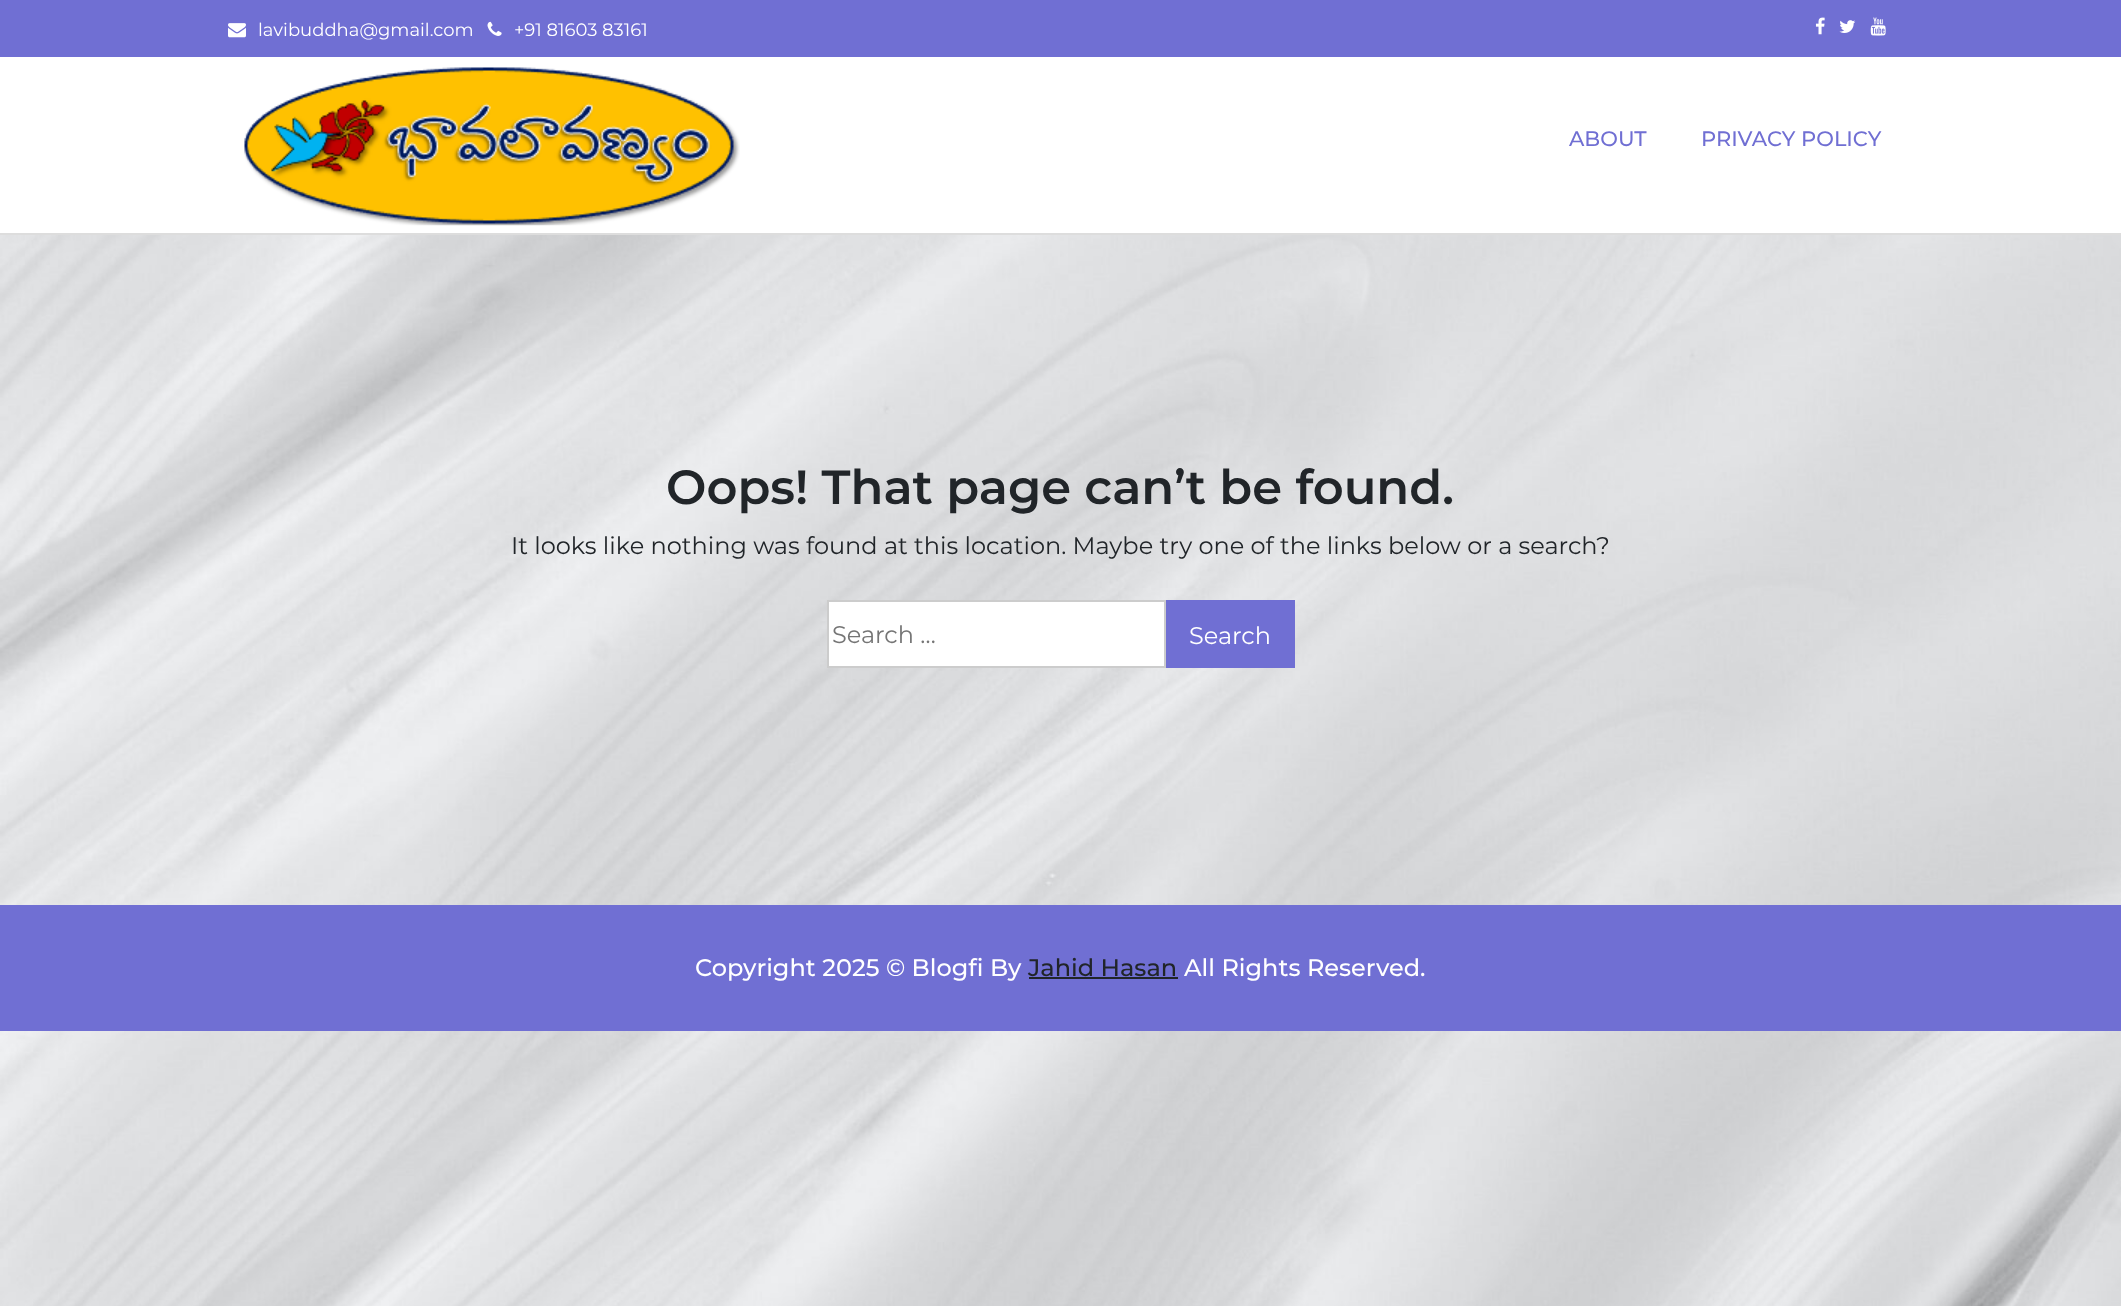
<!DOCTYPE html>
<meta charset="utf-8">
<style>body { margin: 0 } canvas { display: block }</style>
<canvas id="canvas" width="2121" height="1306"></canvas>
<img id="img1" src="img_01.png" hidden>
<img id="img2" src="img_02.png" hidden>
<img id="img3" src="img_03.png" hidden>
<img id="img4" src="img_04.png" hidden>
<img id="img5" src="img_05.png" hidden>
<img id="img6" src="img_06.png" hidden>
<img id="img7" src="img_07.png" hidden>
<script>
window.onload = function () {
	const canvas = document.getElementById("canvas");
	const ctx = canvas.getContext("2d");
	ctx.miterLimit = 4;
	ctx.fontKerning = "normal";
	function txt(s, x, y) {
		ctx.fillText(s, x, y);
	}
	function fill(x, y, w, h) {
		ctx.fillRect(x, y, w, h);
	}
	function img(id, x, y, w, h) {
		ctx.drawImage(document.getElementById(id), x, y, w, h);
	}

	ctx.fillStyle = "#FFFFFF";
	fill(0, 0, 2121, 1306);
	img("img1", 0, 235, 2121, 1071);
	ctx.fillStyle = "#706FD3";
	fill(0, 0, 2121, 57);
	img("img2", 228, 23, 18, 15);
	img("img3", 487, 21, 15, 15);
	img("img4", 1815, 17, 10, 18);
	img("img5", 1839, 20, 17, 13);
	img("img6", 1870, 17, 16, 19);
	ctx.fillStyle = "#DDDDDD";
	fill(0, 233, 2121, 2);
	img("img7", 244, 67, 496, 159);
	ctx.fillStyle = "#FFFFFF";
	ctx.beginPath();
	ctx.rect(828, 601, 337, 66);
	ctx.fill();
	ctx.strokeStyle = "#CCCCCC";
	ctx.lineWidth = 2;
	ctx.stroke();
	ctx.fillStyle = "#706FD3";
	fill(1166, 600, 129, 68);
	fill(0, 905, 2121, 126);
	ctx.fillStyle = "#212529";
	fill(1029, 977, 149, 2);
	ctx.font = "18px Montserrat";
	ctx.fillStyle = "#FFFFFF";
	txt("lavibuddha@gmail.com", 258, 36);
	txt("+91 81603 83161", 514, 36);
	ctx.font = "500 21px Montserrat";
	ctx.fillStyle = "#706FD3";
	txt("ABOUT", 1569, 146);
	txt("PRIVACY POLICY", 1701, 146);
	ctx.font = "600 48px Montserrat";
	ctx.fillStyle = "#212529";
	txt("Oops! That page can’t be found.", 666, 504);
	ctx.font = "24px Montserrat";
	txt("It looks like nothing was found at this location. Maybe try one of the links below or a search?", 511, 554);
	ctx.fillStyle = "#757575";
	txt("Search …", 832, 643);
	ctx.fillStyle = "#FFFFFF";
	txt("Search", 1189, 644);
	ctx.font = "500 24px Montserrat";
	txt("Copyright 2025 © Blogfi By", 695, 976);
	ctx.fillStyle = "#212529";
	txt("Jahid Hasan", 1028, 976);
	ctx.fillStyle = "#FFFFFF";
	txt("All Rights Reserved.", 1184, 976);
};
</script>
